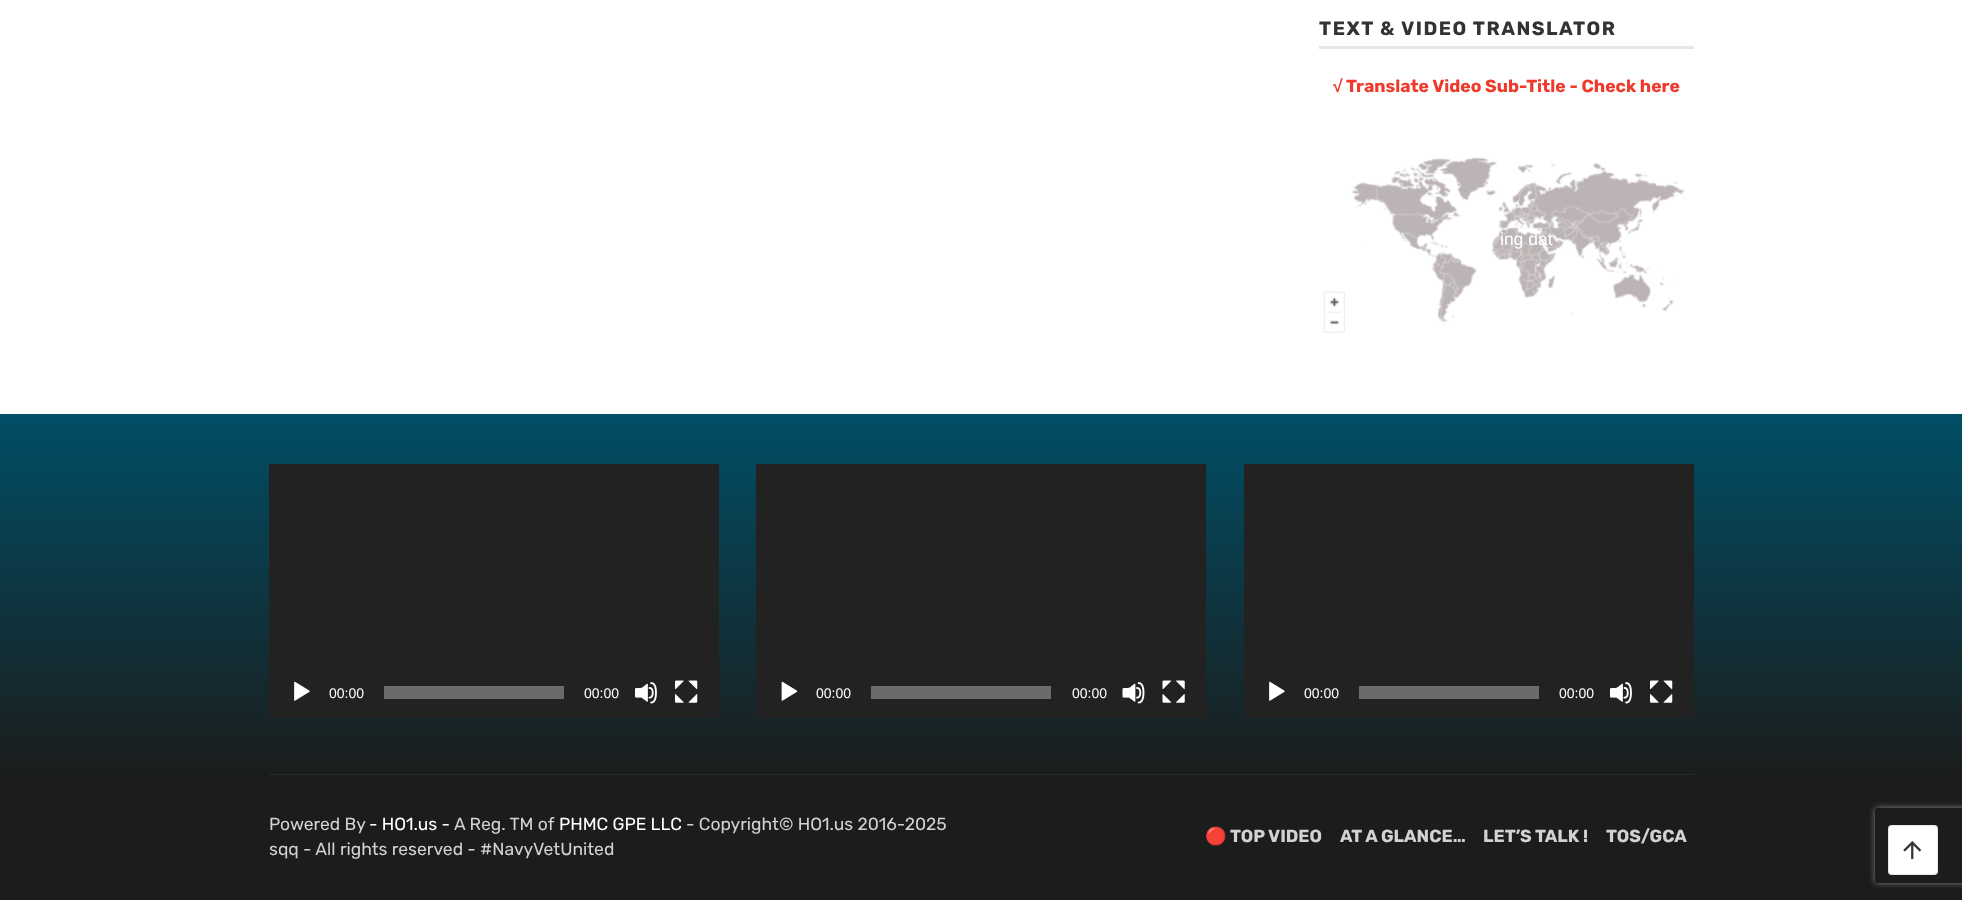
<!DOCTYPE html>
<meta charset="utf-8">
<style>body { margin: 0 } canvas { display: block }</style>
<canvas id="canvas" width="1962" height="900"></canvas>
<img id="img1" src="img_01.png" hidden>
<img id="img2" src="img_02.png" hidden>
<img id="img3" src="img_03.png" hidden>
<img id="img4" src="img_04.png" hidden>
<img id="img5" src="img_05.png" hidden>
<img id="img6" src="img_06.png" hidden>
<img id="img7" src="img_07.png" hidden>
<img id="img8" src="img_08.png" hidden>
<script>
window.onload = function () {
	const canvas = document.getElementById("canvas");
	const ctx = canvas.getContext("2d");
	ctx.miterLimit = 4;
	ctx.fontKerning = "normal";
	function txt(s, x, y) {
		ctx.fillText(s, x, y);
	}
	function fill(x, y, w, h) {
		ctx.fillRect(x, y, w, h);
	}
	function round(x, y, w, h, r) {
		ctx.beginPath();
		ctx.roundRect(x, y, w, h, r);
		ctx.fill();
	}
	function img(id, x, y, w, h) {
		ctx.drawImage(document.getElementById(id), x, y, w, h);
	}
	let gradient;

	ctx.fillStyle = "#FFFFFF";
	fill(0, 0, 1962, 900);
	ctx.fillStyle = "#E6E6E6";
	fill(1319, 46, 375, 3);
	img("img1", 1323, 157, 362, 176);
	ctx.fillStyle = "#1B1D1C";
	fill(0, 774, 1962, 126);
	gradient = ctx.createLinearGradient(981, 414, 981, 774);
	gradient.addColorStop(0, "#004E66");
	gradient.addColorStop(1, "#1B1D1C");
	ctx.fillStyle = gradient;
	fill(0, 414, 1962, 360);
	ctx.fillStyle = "#222222";
	fill(269, 464, 450, 254);
	img("img2", 294, 681, 16, 20);
	ctx.fillStyle = "#6B6B6B";
	fill(384, 686, 180, 13);
	img("img3", 635, 682, 22, 22);
	img("img4", 675, 680, 23, 23);
	ctx.fillStyle = "#222222";
	fill(756, 464, 450, 254);
	img("img5", 781, 681, 17, 20);
	ctx.fillStyle = "#6B6B6B";
	fill(871, 686, 180, 13);
	img("img6", 1122, 682, 23, 22);
	img("img7", 1162, 680, 23, 23);
	ctx.fillStyle = "#222222";
	fill(1244, 464, 450, 254);
	img("img2", 1269, 681, 16, 20);
	ctx.fillStyle = "#6B6B6B";
	fill(1359, 686, 180, 13);
	img("img3", 1610, 682, 22, 22);
	img("img4", 1650, 680, 23, 23);
	ctx.fillStyle = "#292B2A";
	fill(269, 774, 1425, 1);
	ctx.save();
	ctx.beginPath();
	ctx.moveTo(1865, 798);
	ctx.lineTo(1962, 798);
	ctx.lineTo(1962, 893);
	ctx.lineTo(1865, 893);
	ctx.closePath();
	ctx.moveTo(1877.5, 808);
	ctx.lineTo(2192.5, 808);
	ctx.bezierCurveTo(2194, 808, 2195, 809, 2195, 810.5);
	ctx.lineTo(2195, 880.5);
	ctx.bezierCurveTo(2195, 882, 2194, 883, 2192.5, 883);
	ctx.lineTo(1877.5, 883);
	ctx.bezierCurveTo(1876, 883, 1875, 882, 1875, 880.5);
	ctx.lineTo(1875, 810.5);
	ctx.bezierCurveTo(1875, 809, 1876, 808, 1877.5, 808);
	ctx.closePath();
	ctx.clip("evenodd");
	ctx.fillStyle = "#808080";
	ctx.filter = "blur(3px)";
	ctx.beginPath();
	ctx.roundRect(1875, 808, 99, 75, 2.5);
	ctx.fill();
	ctx.filter = "none";
	ctx.restore();
	ctx.fillStyle = "#FFFFFF";
	round(1888, 825, 50, 50, 4);
	ctx.beginPath();
	ctx.roundRect(1888.5, 825.5, 49, 49, 3.5);
	ctx.strokeStyle = "rgba(0, 0, 0, 0.1)";
	ctx.stroke();
	img("img8", 1903, 841, 19, 18);
	ctx.letterSpacing = "1.5px";
	ctx.font = "bold 19.25px Rubik";
	ctx.fillStyle = "#333333";
	txt("TEXT & VIDEO TRANSLATOR", 1319, 35);
	ctx.letterSpacing = "0px";
	ctx.font = "bold 17.5px Liberation Sans";
	ctx.fillStyle = "#EF3A2B";
	txt("√", 1333, 92);
	ctx.font = "bold 17.5px Rubik";
	txt("Translate Video Sub-Title - Check here", 1346, 92);
	ctx.font = "17.5px Liberation Sans";
	ctx.fillStyle = "#FFFFFF";
	txt("ing dat", 1500, 245);
	ctx.font = "14px Liberation Sans";
	txt("00:00", 329, 698);
	txt("00:00", 584, 698);
	txt("00:00", 816, 698);
	txt("00:00", 1072, 698);
	txt("00:00", 1304, 698);
	txt("00:00", 1559, 698);
	ctx.font = "17.5px Rubik";
	ctx.fillStyle = "#D1D2D2";
	txt("Powered By", 269, 830);
	ctx.fillStyle = "#FFFFFF";
	txt("- HO1.us -", 369, 830);
	ctx.fillStyle = "#D1D2D2";
	txt("A Reg. TM of", 454, 830);
	ctx.fillStyle = "#FFFFFF";
	txt("PHMC GPE LLC", 559, 830);
	ctx.fillStyle = "#D1D2D2";
	txt("- Copyright© HO1.us 2016-2025", 686, 830);
	txt("sqq - All rights reserved - #NavyVetUnited", 269, 855);
	ctx.font = "bold 17.5px Noto Color Emoji";
	txt("🔴", 1205, 842);
	ctx.font = "bold 17.5px Rubik";
	txt("TOP VIDEO", 1230, 842);
	txt("AT A GLANCE…", 1340, 842);
	txt("LET’S TALK !", 1483, 842);
	txt("TOS/GCA", 1606, 842);
};
</script>
